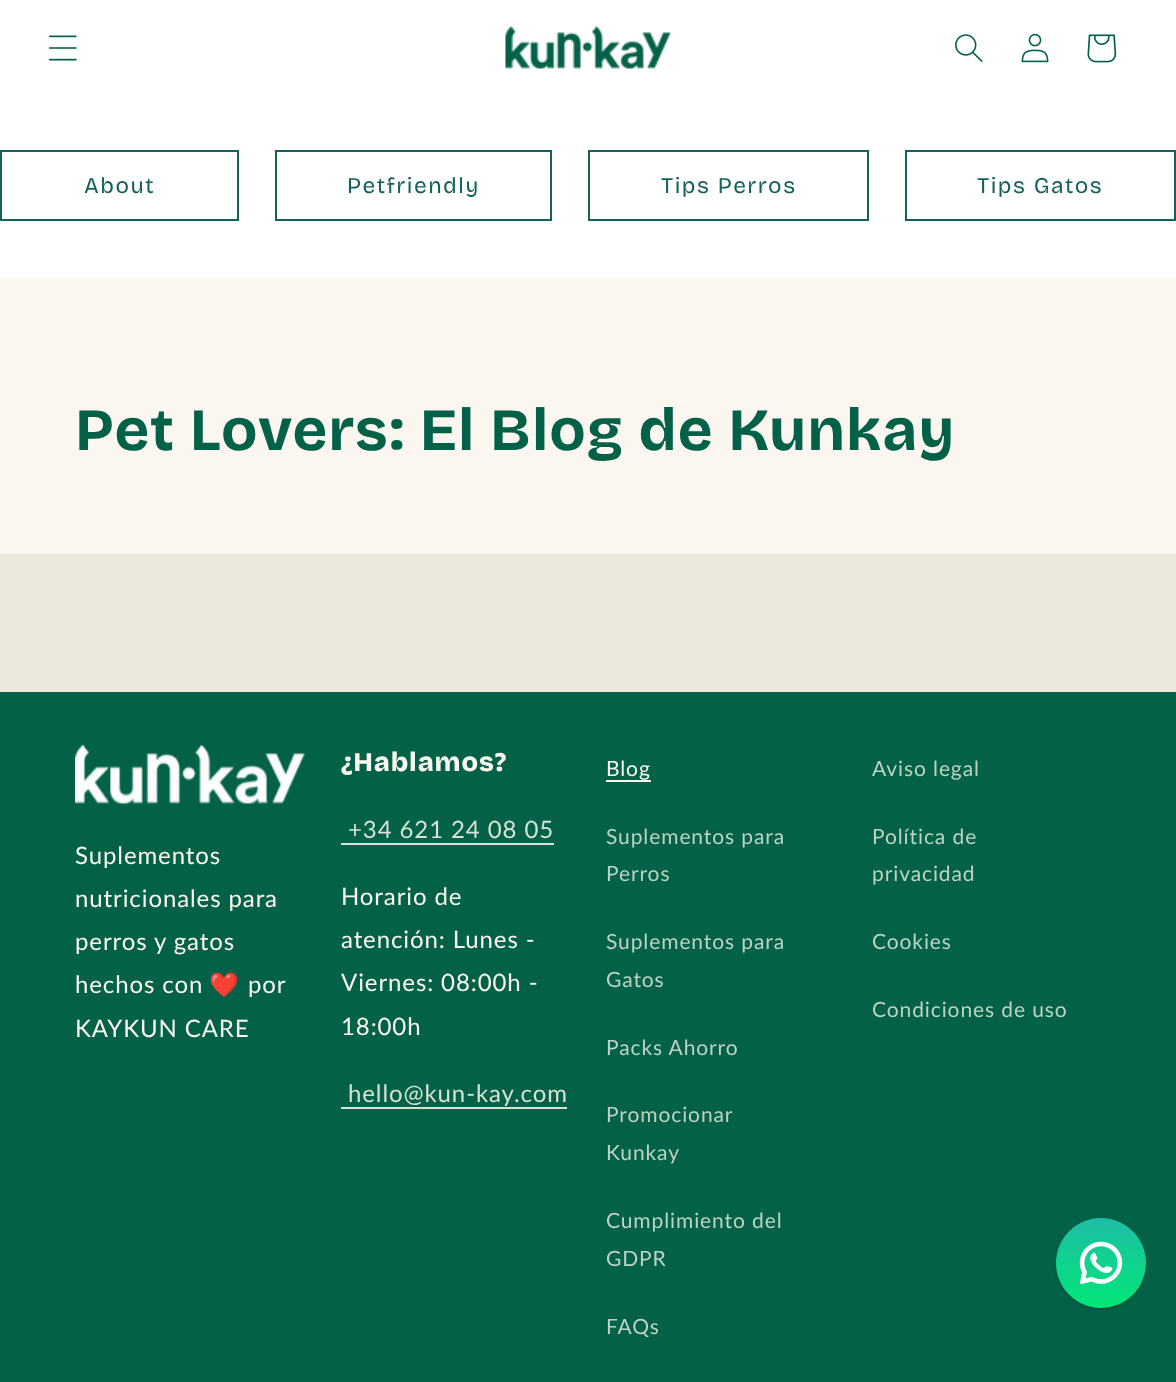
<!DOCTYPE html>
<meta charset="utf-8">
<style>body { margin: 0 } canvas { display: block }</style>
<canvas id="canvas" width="1176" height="1382"></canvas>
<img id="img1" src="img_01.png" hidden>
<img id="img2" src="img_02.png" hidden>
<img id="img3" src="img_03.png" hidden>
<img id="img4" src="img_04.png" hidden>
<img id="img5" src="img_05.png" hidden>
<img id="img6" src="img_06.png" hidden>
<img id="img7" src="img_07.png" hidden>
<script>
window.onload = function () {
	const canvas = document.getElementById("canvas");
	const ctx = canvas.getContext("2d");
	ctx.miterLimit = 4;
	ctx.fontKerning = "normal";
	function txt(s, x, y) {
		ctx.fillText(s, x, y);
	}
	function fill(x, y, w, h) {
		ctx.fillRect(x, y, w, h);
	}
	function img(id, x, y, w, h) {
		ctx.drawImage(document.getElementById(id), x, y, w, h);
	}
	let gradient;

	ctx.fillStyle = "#FBF7F0";
	fill(0, 0, 1176, 1382);
	ctx.fillStyle = "#FFFFFF";
	fill(0, 0, 1176, 278);
	img("img1", 48, 35, 29, 26);
	img("img2", 505, 26, 166, 43);
	img("img3", 955, 34, 28, 28);
	img("img4", 1021, 33, 28, 30);
	img("img5", 1087, 34, 30, 29);
	ctx.strokeStyle = "#13625D";
	ctx.lineWidth = 2;
	ctx.strokeRect(1, 151, 237, 69);
	ctx.strokeRect(276, 151, 275, 69);
	ctx.strokeRect(589, 151, 279, 69);
	ctx.strokeRect(906, 151, 269, 69);
	ctx.fillStyle = "#EDE8DC";
	fill(0, 554, 1176, 138);
	ctx.fillStyle = "#036147";
	fill(0, 692, 1176, 690);
	img("img6", 75, 745, 230, 59);
	ctx.fillStyle = "#D6E1D7";
	fill(341, 843, 213, 2);
	fill(341, 1107, 226, 2);
	ctx.fillStyle = "#FBF7F0";
	fill(606, 780, 45, 2);
	ctx.fillStyle = "rgba(0, 0, 0, 0.15)";
	ctx.filter = "blur(1.5px)";
	ctx.beginPath();
	ctx.roundRect(1056, 1220, 90, 90, 45);
	ctx.fill();
	ctx.filter = "none";
	gradient = ctx.createLinearGradient(1101, 1218, 1101, 1308);
	gradient.addColorStop(0, "#1EBEA5");
	gradient.addColorStop(1, "#01E677");
	ctx.fillStyle = gradient;
	ctx.beginPath();
	ctx.arc(1101, 1263, 45, 0, Math.PI * 2);
	ctx.fill();
	img("img7", 1079, 1241, 44, 44);
	ctx.letterSpacing = "1.5px";
	ctx.font = "22.5px Bricolage Grotesque";
	ctx.fillStyle = "#13625D";
	txt("About", 84, 193);
	txt("Petfriendly", 347, 193);
	txt("Tips Perros", 661, 193);
	txt("Tips Gatos", 977, 193);
	ctx.letterSpacing = "0.9px";
	ctx.font = "bold 60px Bricolage Grotesque";
	ctx.fillStyle = "#036147";
	txt("Pet Lovers: El Blog de Kunkay", 75, 450);
	ctx.font = "24px Lato";
	ctx.fillStyle = "#FBF7F0";
	txt("Suplementos", 75, 864);
	txt("nutricionales para", 75, 907);
	txt("perros y gatos", 75, 950);
	txt("hechos con", 75, 993);
	ctx.font = "24px Noto Color Emoji";
	txt("❤️", 209, 993);
	ctx.font = "24px Lato";
	txt("por", 248, 993);
	txt("KAYKUN CARE", 75, 1037);
	ctx.font = "800 27px Bricolage Grotesque";
	txt("¿Hablamos?", 341, 771);
	ctx.font = "24px Lato";
	ctx.fillStyle = "#D6E1D7";
	txt("+34 621 24 08 05", 348, 838);
	ctx.fillStyle = "#FBF7F0";
	txt("Horario de", 341, 905);
	txt("atención: Lunes -", 341, 948);
	txt("Viernes: 08:00h -", 341, 991);
	txt("18:00h", 341, 1035);
	ctx.fillStyle = "#D6E1D7";
	txt("hello@kun-kay.com", 348, 1102);
	ctx.font = "21px Lato";
	ctx.fillStyle = "#FBF7F0";
	txt("Blog", 606, 776);
	ctx.fillStyle = "#BDD2C6";
	txt("Suplementos para", 606, 844);
	txt("Perros", 606, 881);
	txt("Suplementos para", 606, 949);
	txt("Gatos", 606, 987);
	txt("Packs Ahorro", 606, 1055);
	txt("Promocionar", 606, 1122);
	txt("Kunkay", 606, 1160);
	txt("Cumplimiento del", 606, 1228);
	txt("GDPR", 606, 1266);
	txt("FAQs", 606, 1334);
	txt("Aviso legal", 872, 776);
	txt("Política de", 872, 844);
	txt("privacidad", 872, 881);
	txt("Cookies", 872, 949);
	txt("Condiciones de uso", 872, 1017);
};
</script>
